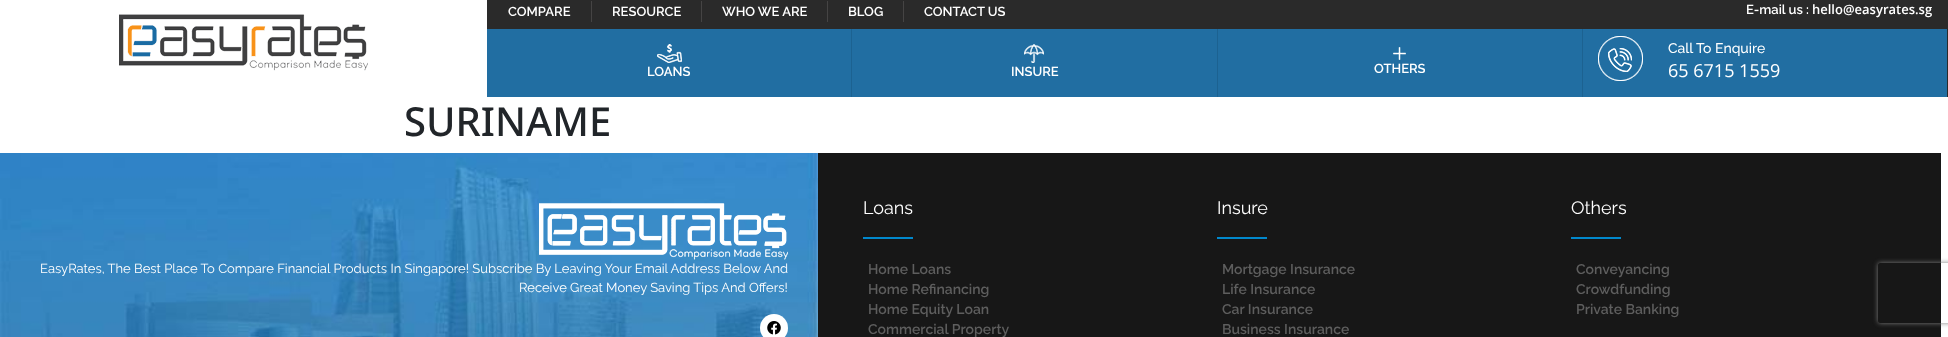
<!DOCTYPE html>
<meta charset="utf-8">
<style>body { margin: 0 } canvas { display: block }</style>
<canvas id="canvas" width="1948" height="337"></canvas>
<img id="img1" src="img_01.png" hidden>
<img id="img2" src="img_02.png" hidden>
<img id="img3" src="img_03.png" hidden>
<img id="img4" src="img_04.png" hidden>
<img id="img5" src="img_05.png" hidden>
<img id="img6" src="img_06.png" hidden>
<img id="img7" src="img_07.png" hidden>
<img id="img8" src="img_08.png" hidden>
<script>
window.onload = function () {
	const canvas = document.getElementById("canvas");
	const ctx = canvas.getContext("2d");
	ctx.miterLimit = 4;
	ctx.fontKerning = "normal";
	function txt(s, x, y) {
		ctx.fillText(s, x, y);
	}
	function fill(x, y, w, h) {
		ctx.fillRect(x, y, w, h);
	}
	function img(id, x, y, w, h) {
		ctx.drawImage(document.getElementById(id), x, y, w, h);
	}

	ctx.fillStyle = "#FFFFFF";
	fill(0, 0, 1948, 337);
	img("img1", 119, 14, 249, 57);
	ctx.fillStyle = "#2A2A2A";
	fill(487, 0, 1461, 97);
	ctx.fillStyle = "#454444";
	fill(591, 1, 1, 21);
	fill(701, 1, 1, 21);
	fill(827, 1, 1, 21);
	fill(903, 1, 1, 21);
	ctx.fillStyle = "#216EA2";
	fill(487, 29, 1095, 68);
	ctx.fillStyle = "#1C6291";
	fill(851, 29, 1, 68);
	img("img2", 657, 44, 25, 19);
	fill(1217, 29, 1, 68);
	img("img3", 1024, 44, 20, 19);
	fill(1582, 29, 1, 68);
	img("img4", 1393, 47, 13, 13);
	ctx.fillStyle = "#216EA2";
	fill(1583, 29, 364, 68);
	img("img5", 1598, 36, 45, 45);
	img("img6", 0, 153, 818, 184);
	img("img7", 539, 203, 249, 57);
	ctx.fillStyle = "#FFFFFF";
	ctx.beginPath();
	ctx.arc(774, 328, 14, 0, Math.PI * 2);
	ctx.fill();
	img("img8", 767, 321, 14, 14);
	ctx.fillStyle = "#171717";
	fill(818, 153, 1123, 184);
	ctx.fillStyle = "#0188CC";
	fill(863, 237, 50, 2);
	fill(1217, 237, 50, 2);
	fill(1571, 237, 50, 2);
	ctx.save();
	ctx.beginPath();
	ctx.moveTo(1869, 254);
	ctx.lineTo(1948, 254);
	ctx.lineTo(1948, 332);
	ctx.lineTo(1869, 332);
	ctx.closePath();
	ctx.moveTo(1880, 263);
	ctx.lineTo(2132, 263);
	ctx.bezierCurveTo(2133, 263, 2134, 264, 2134, 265);
	ctx.lineTo(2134, 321);
	ctx.bezierCurveTo(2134, 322, 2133, 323, 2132, 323);
	ctx.lineTo(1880, 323);
	ctx.bezierCurveTo(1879, 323, 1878, 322, 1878, 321);
	ctx.lineTo(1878, 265);
	ctx.bezierCurveTo(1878, 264, 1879, 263, 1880, 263);
	ctx.closePath();
	ctx.clip("evenodd");
	ctx.fillStyle = "#808080";
	ctx.filter = "blur(2.5px)";
	ctx.beginPath();
	ctx.roundRect(1878, 263, 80, 60, 2);
	ctx.fill();
	ctx.filter = "none";
	ctx.restore();
	ctx.font = "600 13px Raleway";
	ctx.fillStyle = "#FFFFFF";
	txt("COMPARE", 508, 16);
	txt("RESOURCE", 612, 16);
	txt("WHO WE ARE", 722, 16);
	txt("BLOG", 848, 16);
	txt("CONTACT US", 924, 16);
	txt("E-mail us :", 1746, 14);
	ctx.font = "600 13px Open Sans";
	txt("hello@easyrates.sg", 1812, 14);
	ctx.font = "600 13px Raleway";
	txt("LOANS", 647, 76);
	txt("INSURE", 1011, 76);
	txt("OTHERS", 1374, 73);
	ctx.font = "500 14px Raleway";
	txt("Call To Enquire", 1668, 53);
	ctx.font = "18px Open Sans";
	txt("65 6715 1559", 1668, 77);
	ctx.font = "500 40px Noto Sans";
	ctx.fillStyle = "#212529";
	txt("SURINAME", 404, 136);
	ctx.font = "13px Raleway";
	ctx.fillStyle = "#FFFFFF";
	txt("EasyRates, The Best Place To Compare Financial Products In Singapore! Subscribe By Leaving Your Email Address Below And", 40, 273);
	txt("Receive Great Money Saving Tips And Offers!", 519, 292);
	ctx.font = "18px Raleway";
	txt("Loans", 863, 214);
	ctx.font = "600 14px Raleway";
	ctx.fillStyle = "#5E5E5E";
	txt("Home Loans", 868, 274);
	txt("Home Refinancing", 868, 294);
	txt("Home Equity Loan", 868, 314);
	txt("Commercial Property", 868, 334);
	ctx.font = "18px Raleway";
	ctx.fillStyle = "#FFFFFF";
	txt("Insure", 1217, 214);
	ctx.font = "600 14px Raleway";
	ctx.fillStyle = "#5E5E5E";
	txt("Mortgage Insurance", 1222, 274);
	txt("Life Insurance", 1222, 294);
	txt("Car Insurance", 1222, 314);
	txt("Business Insurance", 1222, 334);
	ctx.font = "18px Raleway";
	ctx.fillStyle = "#FFFFFF";
	txt("Others", 1571, 214);
	ctx.font = "600 14px Raleway";
	ctx.fillStyle = "#5E5E5E";
	txt("Conveyancing", 1576, 274);
	txt("Crowdfunding", 1576, 294);
	txt("Private Banking", 1576, 314);
};
</script>
